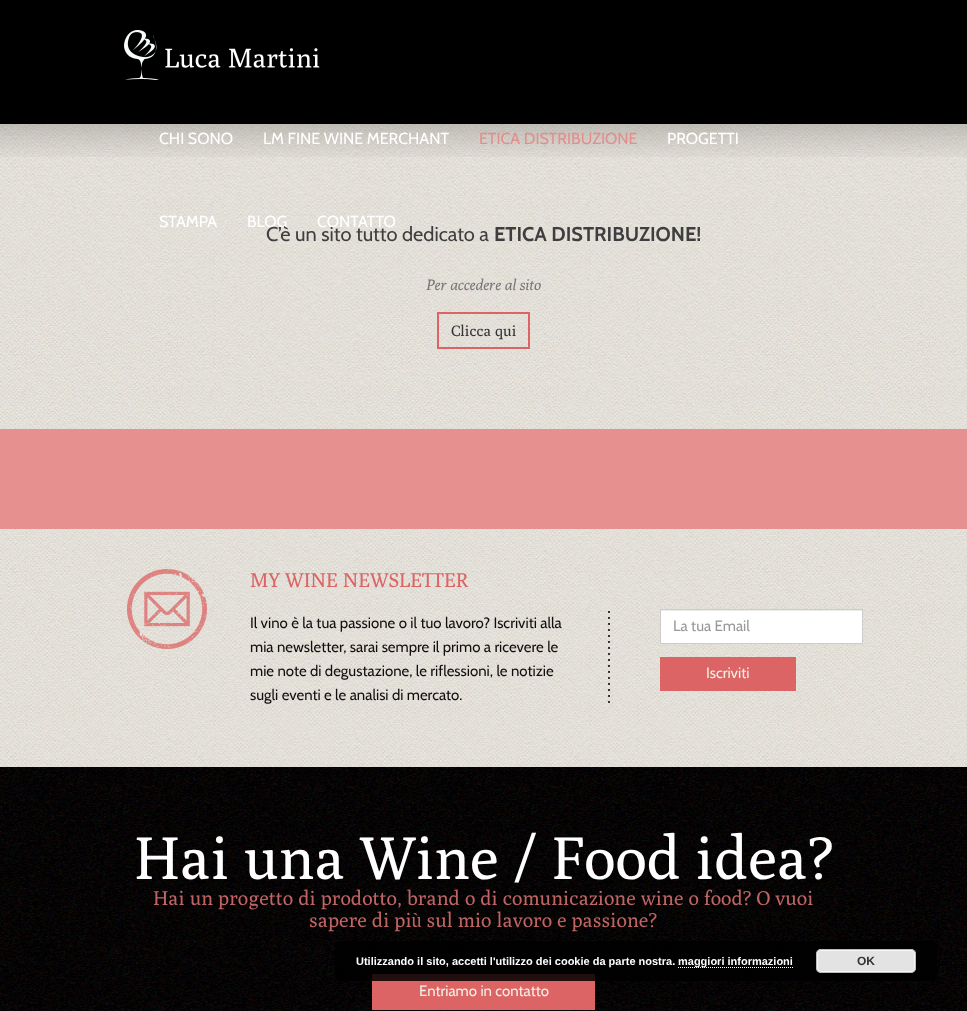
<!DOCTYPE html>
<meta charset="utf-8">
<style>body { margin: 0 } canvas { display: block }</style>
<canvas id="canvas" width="967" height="1011"></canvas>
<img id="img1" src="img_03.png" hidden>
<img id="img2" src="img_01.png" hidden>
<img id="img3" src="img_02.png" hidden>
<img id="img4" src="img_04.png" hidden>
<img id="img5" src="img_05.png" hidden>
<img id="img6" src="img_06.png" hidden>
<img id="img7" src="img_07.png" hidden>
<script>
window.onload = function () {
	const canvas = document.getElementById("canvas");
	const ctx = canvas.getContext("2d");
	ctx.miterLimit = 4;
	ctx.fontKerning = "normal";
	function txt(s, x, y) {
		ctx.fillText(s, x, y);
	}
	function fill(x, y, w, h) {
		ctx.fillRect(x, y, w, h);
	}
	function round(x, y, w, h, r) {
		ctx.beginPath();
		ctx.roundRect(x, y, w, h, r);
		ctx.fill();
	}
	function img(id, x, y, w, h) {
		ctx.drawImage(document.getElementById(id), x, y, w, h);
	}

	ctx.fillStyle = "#FFFFFF";
	fill(0, 0, 967, 1011);
	ctx.fillStyle = "#000000";
	fill(0, 0, 967, 124);
	img("img1", 0, 124, 967, 305);
	img("img2", 0, 0, 967, 157);
	img("img3", 124, 30, 196, 50);
	ctx.strokeStyle = "#DC6464";
	ctx.lineWidth = 2;
	ctx.strokeRect(438, 313, 91, 35);
	ctx.fillStyle = "#E69090";
	fill(0, 429, 967, 100);
	img("img4", 0, 529, 967, 238);
	img("img5", 127, 569, 80, 80);
	img("img6", 608, 611, 2, 92);
	ctx.fillStyle = "#FFFFFF";
	fill(661, 611, 201, 32);
	ctx.fillStyle = "#ECECEC";
	fill(661, 610, 201, 1);
	ctx.strokeStyle = "#CCCCCC";
	ctx.lineWidth = 1;
	ctx.strokeRect(660.5, 609.5, 202, 34);
	ctx.fillStyle = "#DC6464";
	fill(660, 657, 136, 34);
	img("img7", 0, 767, 967, 244);
	fill(372, 974, 223, 36);
	ctx.fillStyle = "rgba(0, 0, 0, 0.85)";
	round(335, 941, 602, 40, 5);
	ctx.beginPath();
	ctx.moveTo(678, 967.5);
	ctx.lineTo(793, 967.5);
	ctx.strokeStyle = "#FFFFFF";
	ctx.setLineDash([1, 1]);
	ctx.stroke();
	ctx.fillStyle = "#E3E3E3";
	round(816, 949, 100, 24, 5);
	ctx.beginPath();
	ctx.roundRect(817.5, 950.5, 97, 21, 3.5);
	ctx.strokeStyle = "#F6F6F6";
	ctx.setLineDash([]);
	ctx.stroke();
	ctx.beginPath();
	ctx.roundRect(816.5, 949.5, 99, 23, 4.5);
	ctx.strokeStyle = "#BBBBBB";
	ctx.stroke();
	ctx.font = "16px Cabin";
	ctx.fillStyle = "#FFFFFF";
	txt("CHI SONO", 159, 144);
	txt("LM FINE WINE MERCHANT", 263, 144);
	ctx.fillStyle = "#E38D8D";
	txt("ETICA DISTRIBUZIONE", 479, 144);
	ctx.fillStyle = "#FFFFFF";
	txt("PROGETTI", 667, 144);
	txt("STAMPA", 159, 227);
	txt("BLOG", 247, 227);
	txt("CONTATTO", 317, 227);
	ctx.font = "20px Cabin";
	ctx.fillStyle = "#3E3E3E";
	txt("C’è un sito tutto dedicato a", 266, 241);
	ctx.font = "bold 20px Cabin";
	txt("ETICA DISTRIBUZIONE!", 494, 241);
	ctx.font = "italic 15px Poly";
	ctx.fillStyle = "#777777";
	txt("Per accedere al sito", 426, 290);
	ctx.font = "15px Poly";
	ctx.fillStyle = "#333333";
	txt("Clicca qui", 451, 336);
	ctx.font = "20px Poly";
	ctx.fillStyle = "#DC6464";
	txt("MY WINE NEWSLETTER", 250, 587);
	ctx.font = "15px Cabin";
	ctx.fillStyle = "#140F0F";
	txt("Il vino è la tua passione o il tuo lavoro? Iscriviti alla", 250, 628);
	txt("mia newsletter, sarai sempre il primo a ricevere le", 250, 652);
	txt("mie note di degustazione, le riflessioni, le notizie", 250, 676);
	txt("sugli eventi e le analisi di mercato.", 250, 700);
	ctx.fillStyle = "#999999";
	txt("La tua Email", 673, 631);
	ctx.fillStyle = "#F0F0E6";
	txt("Iscriviti", 706, 678);
	ctx.font = "60px Poly";
	ctx.fillStyle = "#FFFFFF";
	txt("Hai una Wine / Food idea?", 134, 879);
	ctx.font = "20px Poly";
	ctx.fillStyle = "#BE6464";
	txt("Hai un progetto di prodotto, brand o di comunicazione wine o food? O vuoi", 153, 905);
	txt("sapere di più sul mio lavoro e passione?", 309, 927);
	ctx.font = "15px Cabin";
	ctx.fillStyle = "#F0F0E6";
	txt("Entriamo in contatto", 419, 996);
	ctx.font = "bold 11px Liberation Sans";
	ctx.fillStyle = "#FFFFFF";
	txt("Utilizzando il sito, accetti l'utilizzo dei cookie da parte nostra.", 356, 965);
	txt("maggiori informazioni", 678, 965);
	ctx.font = "bold 12px Liberation Sans";
	ctx.fillStyle = "#333333";
	txt("OK", 857, 965);
};
</script>
